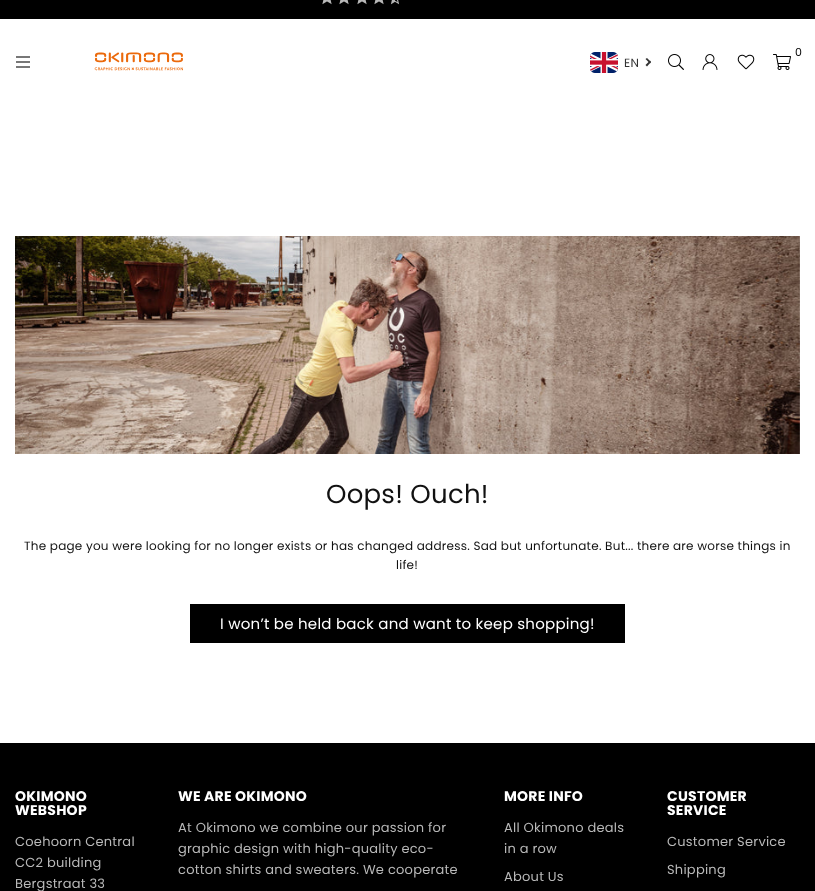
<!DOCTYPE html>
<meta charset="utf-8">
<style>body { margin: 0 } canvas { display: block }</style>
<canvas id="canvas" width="815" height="891"></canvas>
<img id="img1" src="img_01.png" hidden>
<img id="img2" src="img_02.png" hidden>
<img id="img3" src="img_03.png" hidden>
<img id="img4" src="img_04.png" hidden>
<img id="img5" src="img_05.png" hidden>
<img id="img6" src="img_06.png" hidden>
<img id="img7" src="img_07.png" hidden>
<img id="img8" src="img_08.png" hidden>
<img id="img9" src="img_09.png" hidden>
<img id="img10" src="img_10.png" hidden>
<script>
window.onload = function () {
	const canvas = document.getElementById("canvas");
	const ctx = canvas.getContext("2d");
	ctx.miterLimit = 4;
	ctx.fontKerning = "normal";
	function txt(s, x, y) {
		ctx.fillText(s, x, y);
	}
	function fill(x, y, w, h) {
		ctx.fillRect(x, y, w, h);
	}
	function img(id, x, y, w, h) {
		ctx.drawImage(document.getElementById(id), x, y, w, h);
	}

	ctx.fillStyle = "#FFFFFF";
	fill(0, 0, 815, 891);
	ctx.fillStyle = "#000000";
	fill(0, 0, 815, 19);
	img("img1", 322, 0, 10, 5);
	img("img1", 339, 0, 10, 5);
	img("img1", 357, 0, 10, 5);
	img("img1", 374, 0, 10, 5);
	img("img2", 390, 0, 10, 5);
	img("img3", 16, 56, 14, 12);
	img("img4", 94, 52, 89, 19);
	img("img5", 590, 52, 28, 21);
	ctx.fillStyle = "#333333";
	ctx.beginPath();
	ctx.moveTo(647, 58);
	ctx.lineTo(651, 62);
	ctx.lineTo(650, 63.5);
	ctx.lineTo(645.5, 59);
	ctx.closePath();
	ctx.fill();
	ctx.beginPath();
	ctx.moveTo(650, 60.5);
	ctx.lineTo(651, 62);
	ctx.lineTo(647, 66.5);
	ctx.lineTo(645.5, 65);
	ctx.closePath();
	ctx.fill();
	img("img6", 668, 54, 16, 16);
	img("img7", 702, 54, 16, 16);
	img("img8", 737, 54, 18, 16);
	img("img9", 773, 54, 18, 16);
	img("img10", 15, 236, 785, 218);
	ctx.fillStyle = "#000000";
	fill(190, 604, 435, 39);
	fill(0, 743, 815, 148);
	ctx.letterSpacing = "0.24px";
	ctx.font = "12px Poppins";
	ctx.fillStyle = "#333333";
	txt("EN", 624, 67);
	ctx.font = "11px Poppins";
	ctx.fillStyle = "#000000";
	txt("0", 795, 56);
	ctx.font = "26px Poppins";
	ctx.fillStyle = "#111111";
	txt("Oops! Ouch!", 326, 503);
	ctx.font = "12px Poppins";
	txt("The page you were looking for no longer exists or has changed address. Sad but unfortunate. But... there are worse things in", 24, 550);
	txt("life!", 396, 569);
	ctx.font = "15px Poppins";
	ctx.fillStyle = "#FFFFFF";
	txt("I won’t be held back and want to keep shopping!", 220, 629);
	ctx.letterSpacing = "0.25px";
	ctx.font = "bold 14px Poppins";
	txt("OKIMONO", 15, 801);
	txt("WEBSHOP", 15, 815);
	ctx.letterSpacing = "0.24px";
	ctx.font = "13px Poppins";
	ctx.fillStyle = "#B8B8B8";
	txt("Coehoorn Central", 15, 846);
	txt("CC2 building", 15, 867);
	txt("Bergstraat 33", 15, 888);
	ctx.letterSpacing = "0.25px";
	ctx.font = "bold 14px Poppins";
	ctx.fillStyle = "#FFFFFF";
	txt("WE ARE OKIMONO", 178, 801);
	ctx.letterSpacing = "0.24px";
	ctx.font = "13px Poppins";
	ctx.fillStyle = "#B8B8B8";
	txt("At Okimono we combine our passion for", 178, 832);
	txt("graphic design with high-quality eco-", 178, 853);
	txt("cotton shirts and sweaters. We cooperate", 178, 874);
	ctx.letterSpacing = "0.25px";
	ctx.font = "bold 14px Poppins";
	ctx.fillStyle = "#FFFFFF";
	txt("MORE INFO", 504, 801);
	ctx.letterSpacing = "0.24px";
	ctx.font = "13px Poppins";
	ctx.fillStyle = "#B8B8B8";
	txt("All Okimono deals", 504, 832);
	txt("in a row", 504, 853);
	txt("About Us", 504, 881);
	ctx.letterSpacing = "0.25px";
	ctx.font = "bold 14px Poppins";
	ctx.fillStyle = "#FFFFFF";
	txt("CUSTOMER", 667, 801);
	txt("SERVICE", 667, 815);
	ctx.letterSpacing = "0.24px";
	ctx.font = "13px Poppins";
	ctx.fillStyle = "#B8B8B8";
	txt("Customer Service", 667, 846);
	txt("Shipping", 667, 874);
};
</script>
